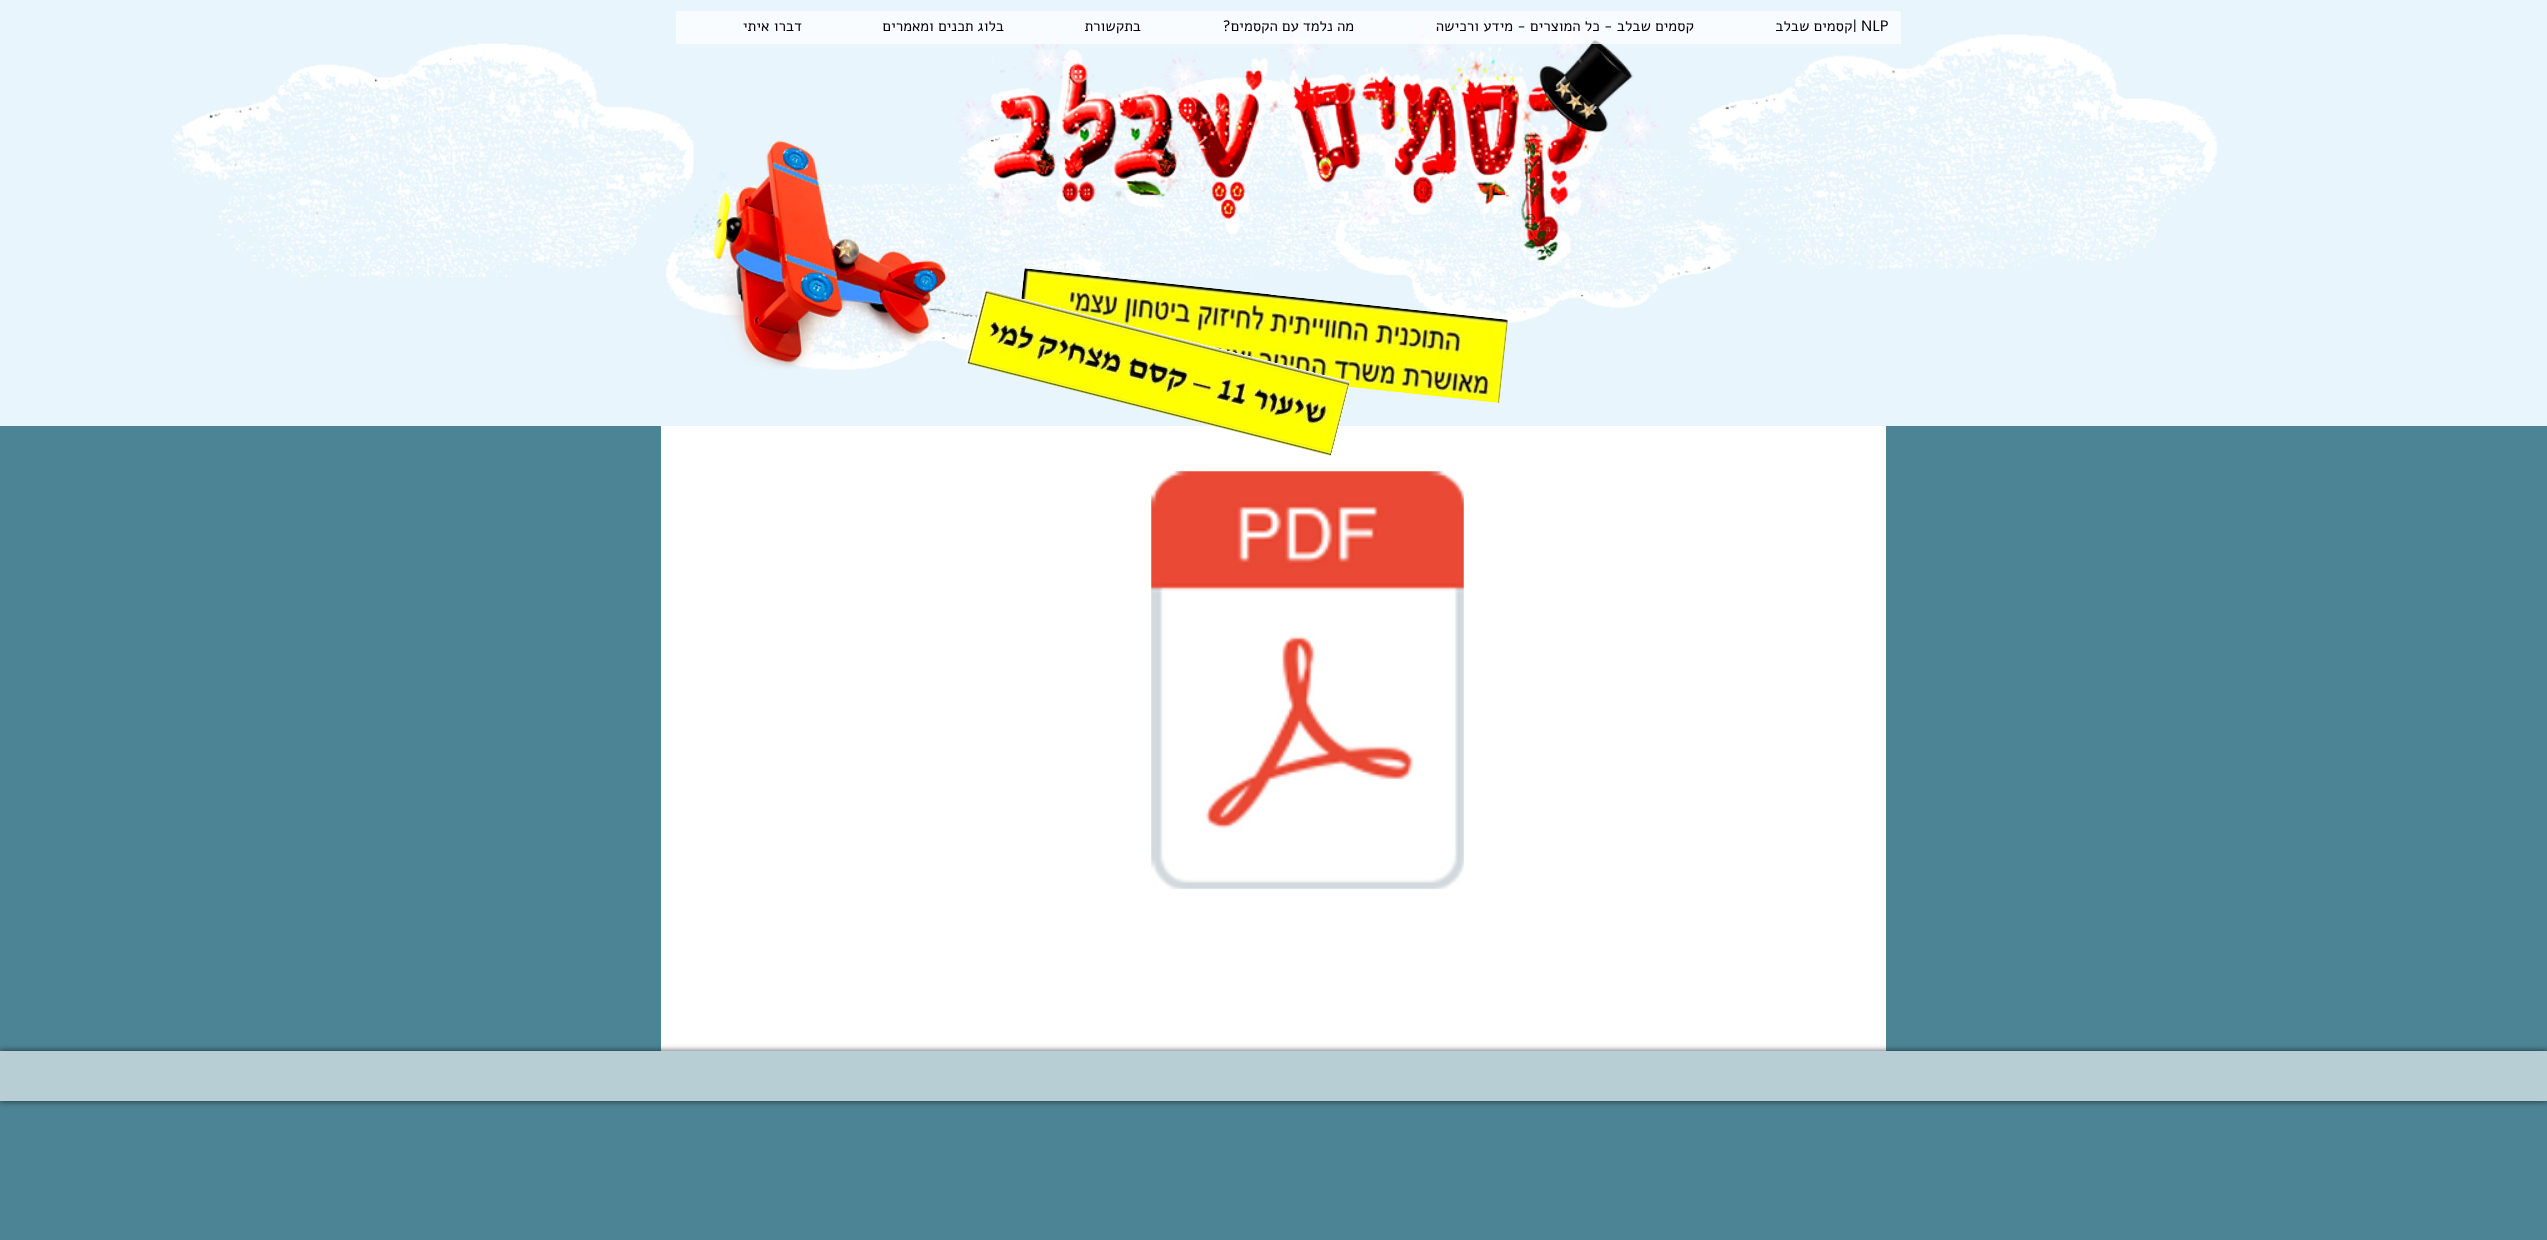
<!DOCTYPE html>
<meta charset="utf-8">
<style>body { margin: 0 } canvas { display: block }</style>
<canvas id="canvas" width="2547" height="1240"></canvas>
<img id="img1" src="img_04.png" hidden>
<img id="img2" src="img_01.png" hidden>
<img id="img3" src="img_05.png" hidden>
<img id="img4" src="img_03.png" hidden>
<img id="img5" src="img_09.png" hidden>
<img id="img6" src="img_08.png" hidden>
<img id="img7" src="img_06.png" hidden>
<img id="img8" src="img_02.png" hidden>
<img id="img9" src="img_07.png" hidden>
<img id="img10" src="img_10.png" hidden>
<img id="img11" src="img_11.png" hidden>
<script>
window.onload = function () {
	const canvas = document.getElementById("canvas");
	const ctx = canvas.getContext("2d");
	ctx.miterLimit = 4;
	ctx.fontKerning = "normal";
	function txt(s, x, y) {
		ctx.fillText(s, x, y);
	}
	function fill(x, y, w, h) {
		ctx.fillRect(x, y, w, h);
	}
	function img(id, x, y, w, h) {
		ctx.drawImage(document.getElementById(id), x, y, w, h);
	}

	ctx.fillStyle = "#4D8495";
	fill(0, 0, 2547, 1240);
	ctx.fillStyle = "#E8F5FC";
	fill(0, 0, 2547, 426);
	img("img1", 1335, 145, 404, 179);
	img("img2", 1687, 34, 531, 235);
	img("img3", 958, 77, 454, 202);
	img("img4", 172, 43, 522, 235);
	img("img5", 928, 307, 50, 11);
	img("img6", 666, 184, 454, 186);
	img("img7", 691, 140, 292, 230);
	img("img8", 955, 29, 705, 237);
	ctx.fillStyle = "rgba(255, 255, 255, 0.71)";
	fill(676, 11, 1225, 33);
	img("img9", 1021, 268, 487, 135);
	ctx.fillStyle = "#FFFFFF";
	fill(661, 426, 1225, 625);
	img("img10", 965, 289, 385, 167);
	img("img11", 1151, 471, 313, 418);
	ctx.save();
	ctx.beginPath();
	ctx.moveTo(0, 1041);
	ctx.lineTo(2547, 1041);
	ctx.lineTo(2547, 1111);
	ctx.lineTo(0, 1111);
	ctx.closePath();
	ctx.moveTo(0, 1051);
	ctx.lineTo(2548, 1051);
	ctx.lineTo(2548, 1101);
	ctx.lineTo(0, 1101);
	ctx.closePath();
	ctx.clip("evenodd");
	ctx.fillStyle = "rgba(0, 0, 0, 0.7)";
	ctx.filter = "blur(3px)";
	ctx.beginPath();
	ctx.rect(0, 1051, 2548, 50);
	ctx.fill();
	ctx.filter = "none";
	ctx.restore();
	ctx.fillStyle = "rgba(255, 255, 255, 0.6)";
	fill(0, 1051, 2547, 50);
	ctx.font = "15px Alef";
	ctx.fillStyle = "#000000";
	txt("NLP", 1861, 31);
	ctx.direction = "rtl";
	txt("|קסמים שבלב", 1857, 31);
	txt("קסמים שבלב - כל המוצרים - מידע ורכישה", 1694, 31);
	txt("מה נלמד עם הקסמים?", 1354, 31);
	txt("בתקשורת", 1141, 31);
	txt("בלוג תכנים ומאמרים", 1004, 31);
	txt("דברו איתי", 802, 31);
};
</script>
